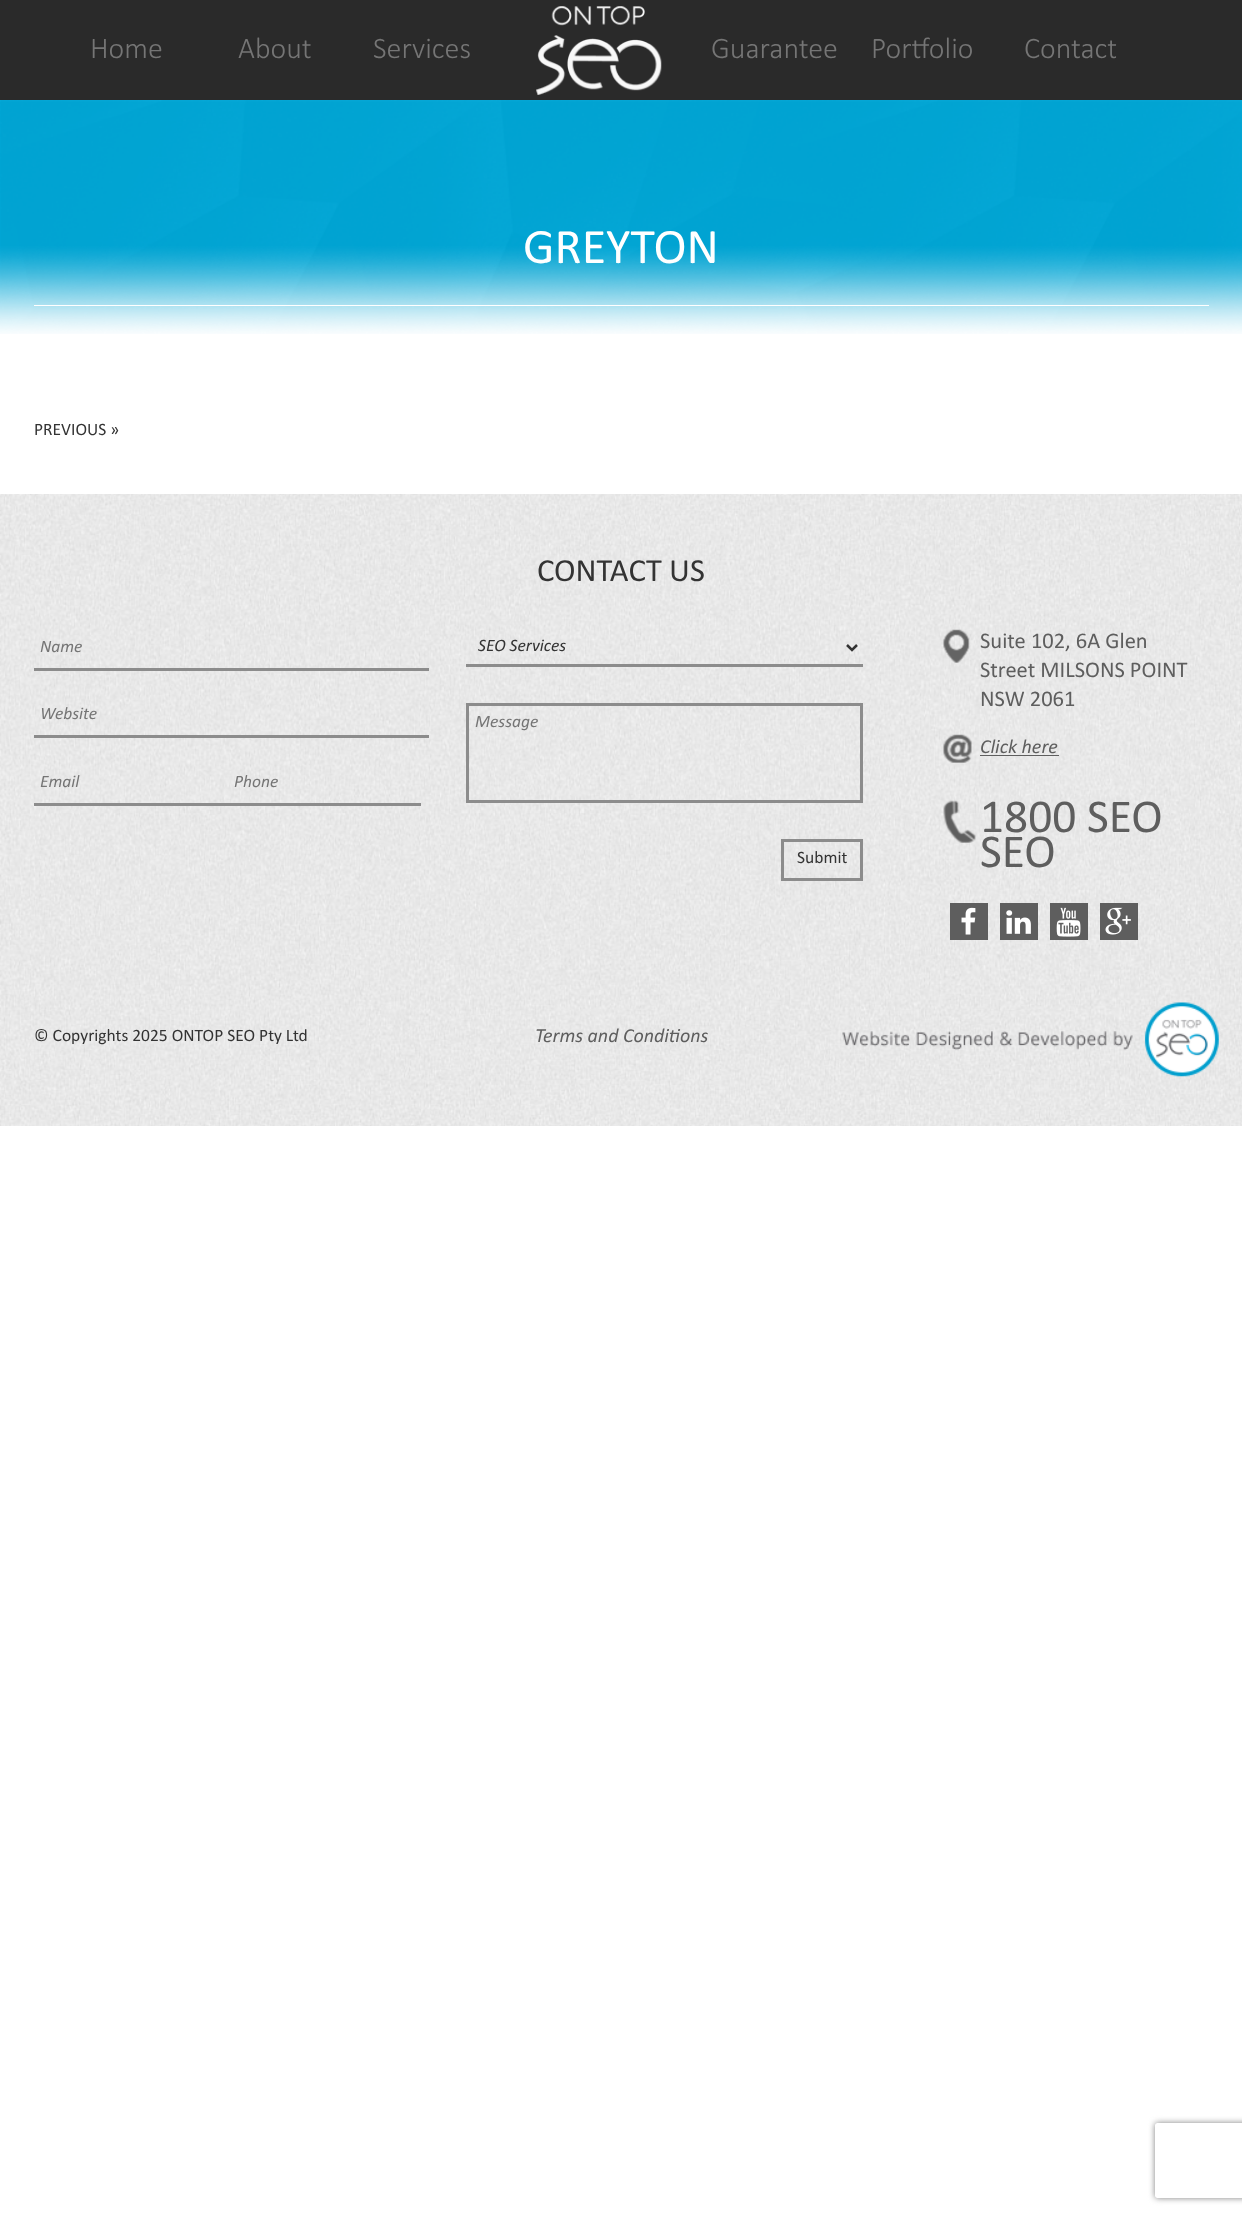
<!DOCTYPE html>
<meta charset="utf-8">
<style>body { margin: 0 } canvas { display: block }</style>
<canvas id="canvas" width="1242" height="2227"></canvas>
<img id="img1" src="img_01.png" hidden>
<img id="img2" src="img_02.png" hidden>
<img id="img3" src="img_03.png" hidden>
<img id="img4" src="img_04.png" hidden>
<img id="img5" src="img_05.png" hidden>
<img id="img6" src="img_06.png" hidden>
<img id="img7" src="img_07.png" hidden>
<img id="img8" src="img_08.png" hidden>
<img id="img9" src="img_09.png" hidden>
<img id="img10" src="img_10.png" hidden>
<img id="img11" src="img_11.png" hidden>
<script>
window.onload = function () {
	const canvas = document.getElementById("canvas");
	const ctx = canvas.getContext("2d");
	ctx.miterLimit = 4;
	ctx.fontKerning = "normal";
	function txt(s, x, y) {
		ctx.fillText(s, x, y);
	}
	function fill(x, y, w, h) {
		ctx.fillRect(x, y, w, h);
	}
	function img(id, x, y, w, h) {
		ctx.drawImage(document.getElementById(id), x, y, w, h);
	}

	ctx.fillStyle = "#FFFFFF";
	fill(0, 0, 1242, 2227);
	ctx.fillStyle = "#2A2A2A";
	fill(0, 0, 1242, 100);
	img("img1", 536, 6, 126, 89);
	img("img2", 0, 100, 1242, 234);
	ctx.fillStyle = "#FFFFFF";
	fill(34, 305, 1175, 1);
	img("img3", 0, 494, 1242, 632);
	ctx.fillStyle = "#8C8C8C";
	fill(34, 668, 395, 3);
	fill(34, 735, 395, 3);
	fill(34, 803, 387, 3);
	fill(466, 664, 397, 3);
	ctx.beginPath();
	ctx.moveTo(847, 645);
	ctx.lineTo(852, 650);
	ctx.lineTo(857, 645);
	ctx.strokeStyle = "#333333";
	ctx.lineWidth = 2.5;
	ctx.stroke();
	ctx.strokeStyle = "#8C8C8C";
	ctx.lineWidth = 3;
	ctx.strokeRect(467.5, 704.5, 394, 97);
	ctx.strokeRect(782.5, 840.5, 79, 39);
	img("img4", 943, 629, 27, 34);
	img("img5", 943, 734, 29, 29);
	ctx.fillStyle = "#5E5E5E";
	fill(980, 755, 79, 1);
	img("img6", 943, 800, 33, 43);
	fill(950, 903, 38, 37);
	img("img7", 961, 907, 15, 28);
	fill(1000, 903, 38, 37);
	img("img8", 1006, 910, 25, 24);
	fill(1050, 903, 38, 37);
	img("img9", 1056, 907, 25, 30);
	fill(1100, 903, 38, 37);
	img("img10", 1105, 907, 26, 28);
	img("img11", 842, 1002, 377, 75);
	ctx.save();
	ctx.beginPath();
	ctx.moveTo(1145, 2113);
	ctx.lineTo(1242, 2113);
	ctx.lineTo(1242, 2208);
	ctx.lineTo(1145, 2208);
	ctx.closePath();
	ctx.moveTo(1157.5, 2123);
	ctx.lineTo(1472.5, 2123);
	ctx.bezierCurveTo(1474, 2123, 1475, 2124, 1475, 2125.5);
	ctx.lineTo(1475, 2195.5);
	ctx.bezierCurveTo(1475, 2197, 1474, 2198, 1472.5, 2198);
	ctx.lineTo(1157.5, 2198);
	ctx.bezierCurveTo(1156, 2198, 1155, 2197, 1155, 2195.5);
	ctx.lineTo(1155, 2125.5);
	ctx.bezierCurveTo(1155, 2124, 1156, 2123, 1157.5, 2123);
	ctx.closePath();
	ctx.clip("evenodd");
	ctx.fillStyle = "#808080";
	ctx.filter = "blur(3px)";
	ctx.beginPath();
	ctx.roundRect(1155, 2123, 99, 75, 2.5);
	ctx.fill();
	ctx.filter = "none";
	ctx.restore();
	ctx.font = "300 30px Calibri";
	ctx.fillStyle = "#757575";
	txt("Home", 90, 58);
	txt("About", 238, 58);
	txt("Services", 373, 58);
	txt("Guarantee", 711, 58);
	txt("Portfolio", 871, 58);
	txt("Contact", 1024, 58);
	ctx.font = "50px Calibri";
	ctx.fillStyle = "#FFFFFF";
	txt("GREYTON", 523, 263);
	ctx.font = "17.5px Calibri";
	ctx.fillStyle = "#333333";
	txt("PREVIOUS »", 34, 435);
	ctx.font = "32.5px Calibri";
	txt("CONTACT US", 537, 581);
	ctx.font = "italic 17.5px Calibri";
	ctx.fillStyle = "#757575";
	txt("Name", 40, 652);
	txt("Website", 40, 719);
	txt("Email", 40, 787);
	txt("Phone", 234, 787);
	ctx.fillStyle = "#333333";
	txt("SEO Services", 478, 651);
	ctx.fillStyle = "#757575";
	txt("Message", 475, 727);
	ctx.font = "17.5px Calibri";
	ctx.fillStyle = "#333333";
	txt("Submit", 797, 863);
	ctx.font = "22.5px Calibri";
	ctx.fillStyle = "#5E5E5E";
	txt("Suite 102, 6A Glen", 980, 648);
	txt("Street MILSONS POINT", 980, 677);
	txt("NSW 2061", 980, 706);
	ctx.font = "italic 20px Calibri";
	txt("Click here", 980, 753);
	ctx.font = "47.5px Calibri";
	txt("1800 SEO", 980, 832);
	txt("SEO", 980, 867);
	ctx.font = "17.5px Calibri";
	ctx.fillStyle = "#333333";
	txt("© Copyrights 2025 ONTOP SEO Pty Ltd", 34, 1041);
	ctx.font = "italic 20px Calibri";
	ctx.fillStyle = "#5E5E5E";
	txt("Terms and Conditions", 535, 1042);
};
</script>
